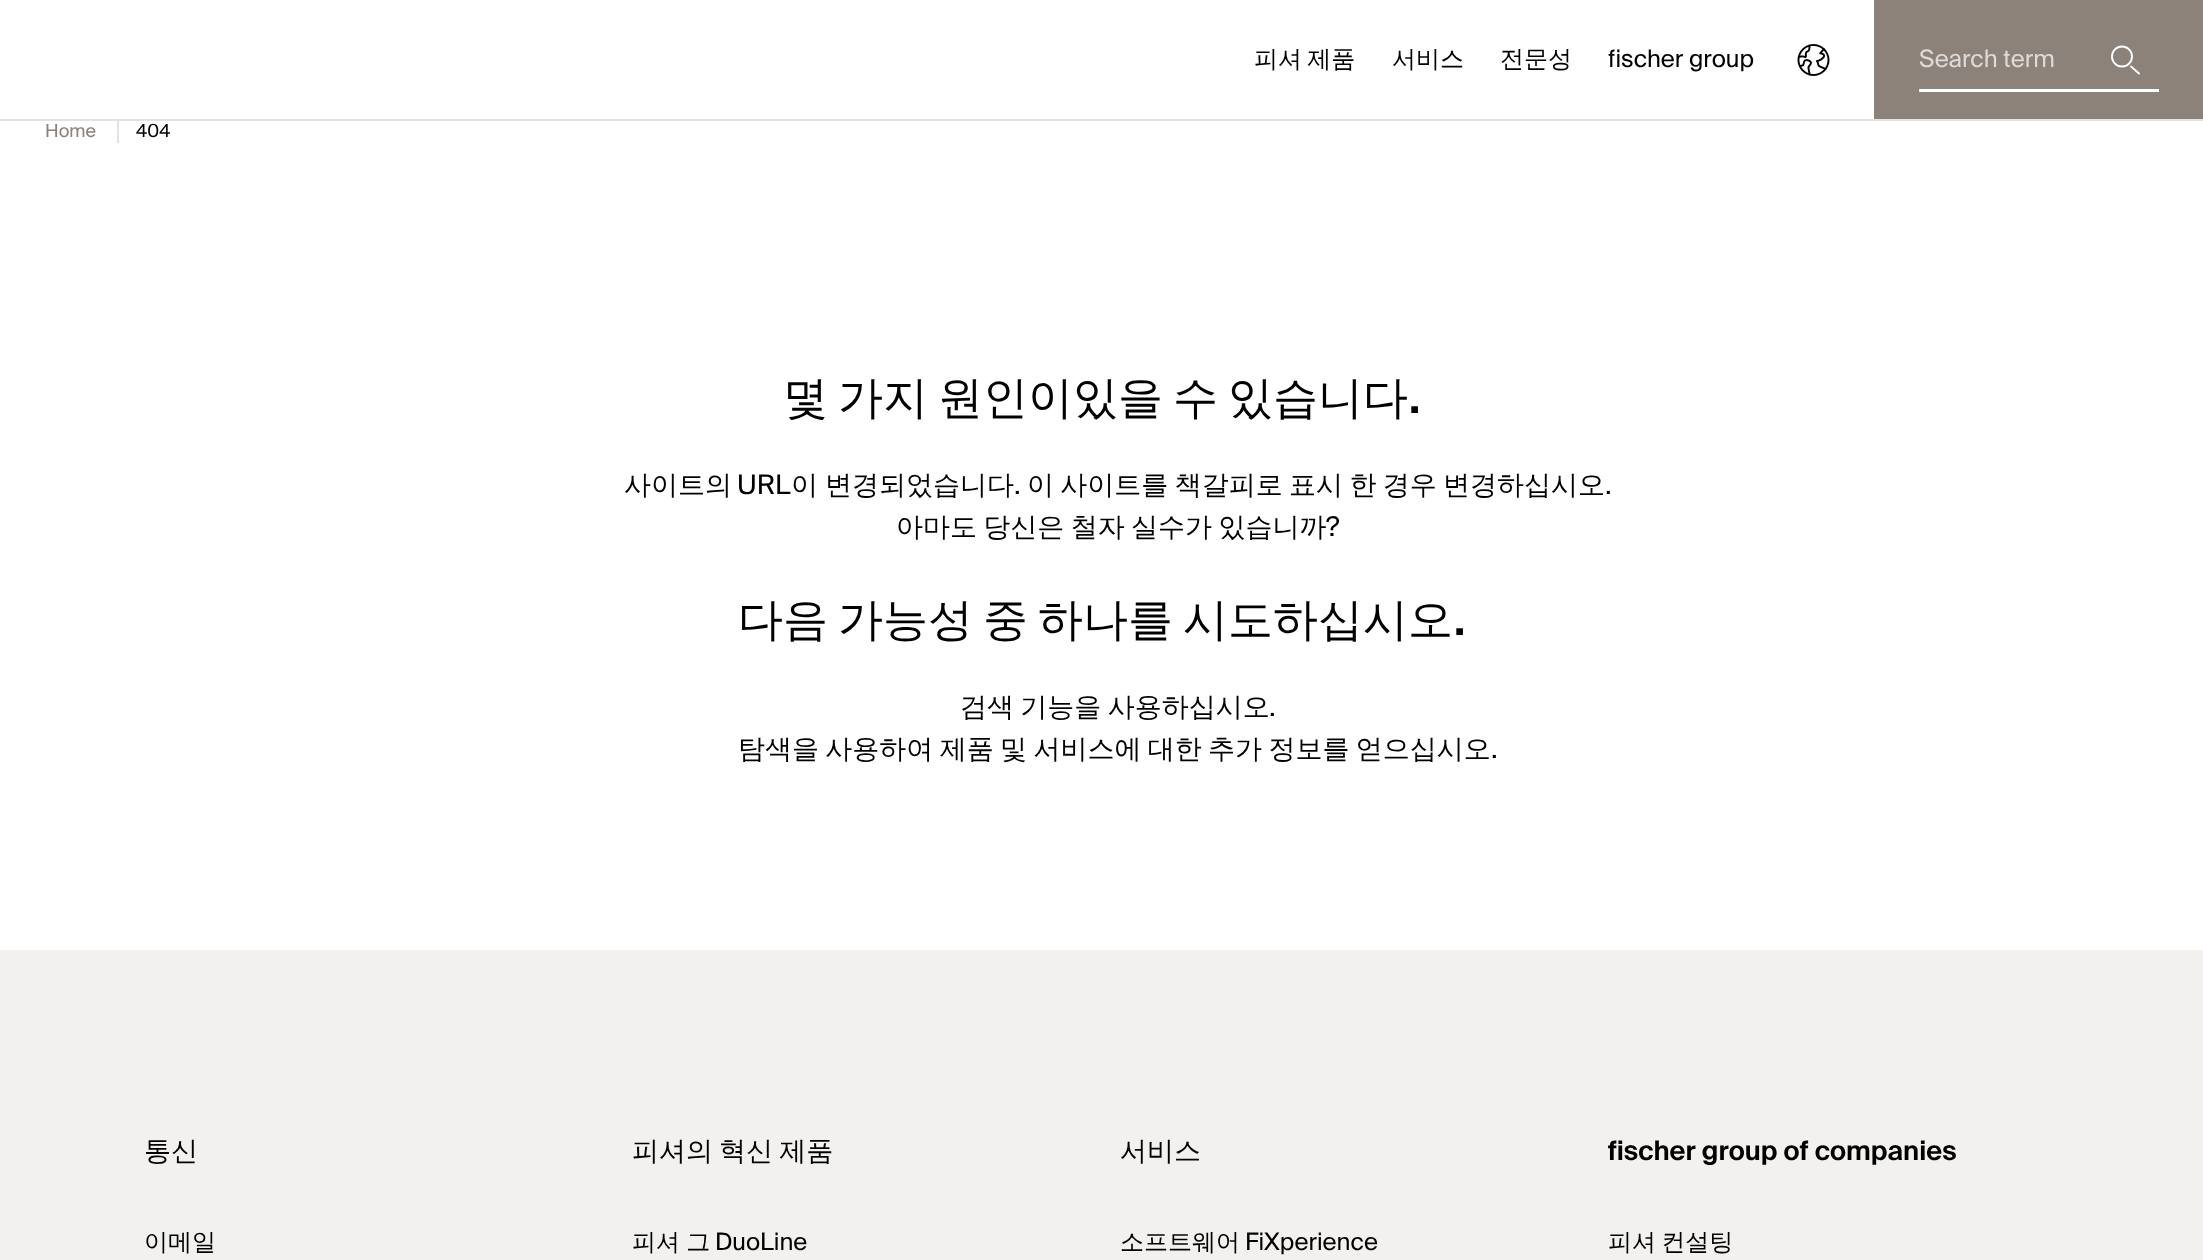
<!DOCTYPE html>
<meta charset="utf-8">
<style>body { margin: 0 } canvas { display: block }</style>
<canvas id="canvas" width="2203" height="1260"></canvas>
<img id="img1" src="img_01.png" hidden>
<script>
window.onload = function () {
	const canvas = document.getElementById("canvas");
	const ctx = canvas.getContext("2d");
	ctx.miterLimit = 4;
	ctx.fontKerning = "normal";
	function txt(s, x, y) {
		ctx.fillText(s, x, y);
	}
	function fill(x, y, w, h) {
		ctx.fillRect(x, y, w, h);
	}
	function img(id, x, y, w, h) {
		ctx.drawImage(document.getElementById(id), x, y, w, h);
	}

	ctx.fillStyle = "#FFFFFF";
	fill(0, 0, 2203, 1260);
	ctx.fillStyle = "#E5E3DF";
	fill(117, 119, 2, 24);
	fill(0, 119, 2203, 2);
	img("img1", 1797, 44, 33, 32);
	ctx.fillStyle = "#8C827A";
	fill(1874, 0, 329, 119);
	ctx.beginPath();
	ctx.arc(2122, 56.5, 10, 0, Math.PI * 2);
	ctx.strokeStyle = "#FFFFFF";
	ctx.lineWidth = 1.9;
	ctx.stroke();
	ctx.beginPath();
	ctx.moveTo(2139, 73.5);
	ctx.lineTo(2131, 66.5);
	ctx.lineCap = "round";
	ctx.stroke();
	ctx.fillStyle = "#FFFFFF";
	fill(1919, 89, 240, 3);
	ctx.fillStyle = "#F2F1EF";
	fill(0, 950, 2203, 310);
	ctx.wordSpacing = "-2px";
	ctx.font = "500 24px WenQuanYi Zen Hei";
	ctx.fillStyle = "#000000";
	txt("피셔 제품", 1254, 67);
	ctx.wordSpacing = "0px";
	txt("서비스", 1392, 67);
	txt("전문성", 1500, 67);
	ctx.font = "24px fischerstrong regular";
	txt("fischer group", 1608, 67);
	ctx.fillStyle = "#DDDAD7";
	txt("Search term", 1919, 67);
	ctx.font = "18px fischerstrong regular";
	ctx.fillStyle = "#8C827A";
	txt("Home", 45, 137);
	ctx.fillStyle = "#000000";
	txt("404", 136, 137);
	ctx.wordSpacing = "-3.5px";
	ctx.font = "500 45px WenQuanYi Zen Hei";
	txt("몇 가지 원인이있을 수 있습니다", 783, 413);
	ctx.wordSpacing = "0px";
	ctx.font = "600 45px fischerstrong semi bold";
	txt(".", 1409, 413);
	ctx.font = "500 27px WenQuanYi Zen Hei";
	txt("사이트의", 624, 494);
	ctx.font = "27px fischerstrong regular";
	txt("URL", 737, 494);
	ctx.wordSpacing = "-1px";
	ctx.font = "500 27px WenQuanYi Zen Hei";
	txt("이 변경되었습니다", 791, 494);
	ctx.wordSpacing = "0px";
	ctx.font = "27px fischerstrong regular";
	txt(".", 1014, 494);
	ctx.wordSpacing = "-1.75px";
	ctx.font = "500 27px WenQuanYi Zen Hei";
	txt("이 사이트를 책갈피로 표시 한 경우 변경하십시오", 1027, 494);
	ctx.wordSpacing = "0px";
	ctx.font = "27px fischerstrong regular";
	txt(".", 1605, 494);
	ctx.wordSpacing = "-1.75px";
	ctx.font = "500 27px WenQuanYi Zen Hei";
	txt("아마도 당신은 철자 실수가 있습니까", 896, 536);
	ctx.wordSpacing = "0px";
	ctx.font = "27px fischerstrong regular";
	txt("?", 1326, 536);
	ctx.wordSpacing = "-3.5px";
	ctx.font = "500 45px WenQuanYi Zen Hei";
	txt("다음 가능성 중 하나를 시도하십시오", 738, 635);
	ctx.wordSpacing = "0px";
	ctx.font = "600 45px fischerstrong semi bold";
	txt(".", 1454, 635);
	ctx.wordSpacing = "-1.75px";
	ctx.font = "500 27px WenQuanYi Zen Hei";
	txt("검색 기능을 사용하십시오", 960, 716);
	ctx.wordSpacing = "0px";
	ctx.font = "27px fischerstrong regular";
	txt(".", 1269, 716);
	ctx.wordSpacing = "-1.75px";
	ctx.font = "500 27px WenQuanYi Zen Hei";
	txt("탐색을 사용하여 제품 및 서비스에 대한 추가 정보를 얻으십시오", 738, 758);
	ctx.wordSpacing = "0px";
	ctx.font = "27px fischerstrong regular";
	txt(".", 1491, 758);
	ctx.font = "500 27px WenQuanYi Zen Hei";
	txt("통신", 144, 1160);
	ctx.font = "500 24px WenQuanYi Zen Hei";
	txt("이메일", 144, 1250);
	ctx.wordSpacing = "-2px";
	ctx.font = "500 27px WenQuanYi Zen Hei";
	txt("피셔의 혁신 제품", 632, 1160);
	ctx.wordSpacing = "-1px";
	ctx.font = "500 24px WenQuanYi Zen Hei";
	txt("피셔 그", 632, 1250);
	ctx.wordSpacing = "0px";
	ctx.font = "24px fischerstrong regular";
	txt("DuoLine", 715, 1250);
	ctx.font = "500 27px WenQuanYi Zen Hei";
	txt("서비스", 1120, 1160);
	ctx.font = "500 24px WenQuanYi Zen Hei";
	txt("소프트웨어", 1120, 1250);
	ctx.font = "24px fischerstrong regular";
	txt("FiXperience", 1245, 1250);
	ctx.font = "600 27px fischerstrong semi bold";
	txt("fischer group of companies", 1608, 1160);
	ctx.wordSpacing = "-2px";
	ctx.font = "500 24px WenQuanYi Zen Hei";
	txt("피셔 컨설팅", 1608, 1250);
};
</script>
